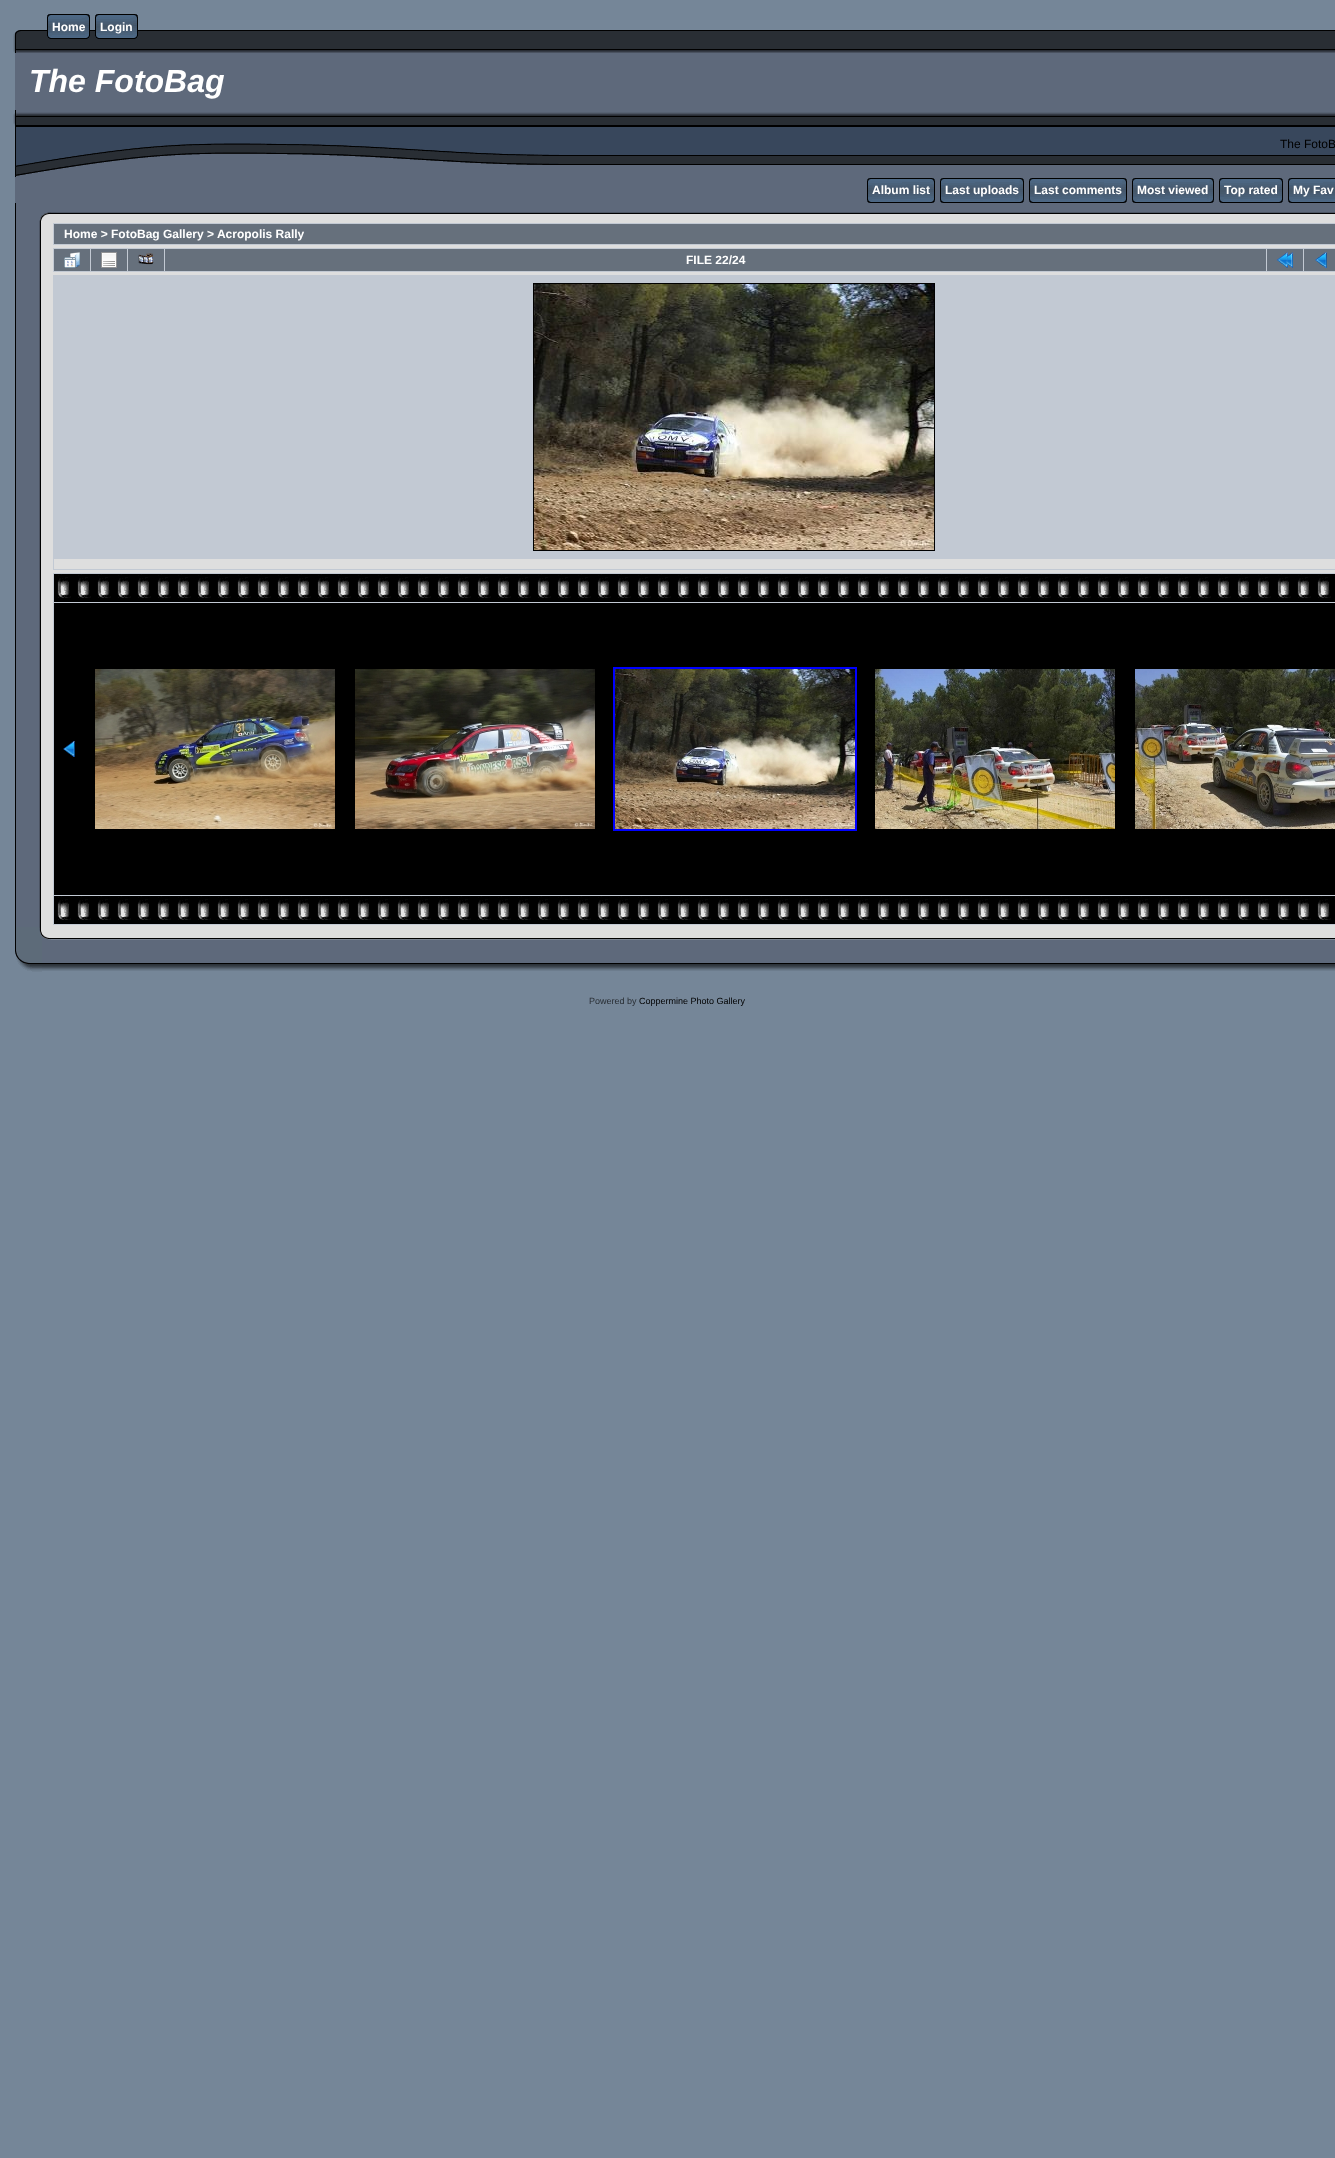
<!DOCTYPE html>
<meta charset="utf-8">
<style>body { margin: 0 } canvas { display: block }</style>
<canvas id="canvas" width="1335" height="2158"></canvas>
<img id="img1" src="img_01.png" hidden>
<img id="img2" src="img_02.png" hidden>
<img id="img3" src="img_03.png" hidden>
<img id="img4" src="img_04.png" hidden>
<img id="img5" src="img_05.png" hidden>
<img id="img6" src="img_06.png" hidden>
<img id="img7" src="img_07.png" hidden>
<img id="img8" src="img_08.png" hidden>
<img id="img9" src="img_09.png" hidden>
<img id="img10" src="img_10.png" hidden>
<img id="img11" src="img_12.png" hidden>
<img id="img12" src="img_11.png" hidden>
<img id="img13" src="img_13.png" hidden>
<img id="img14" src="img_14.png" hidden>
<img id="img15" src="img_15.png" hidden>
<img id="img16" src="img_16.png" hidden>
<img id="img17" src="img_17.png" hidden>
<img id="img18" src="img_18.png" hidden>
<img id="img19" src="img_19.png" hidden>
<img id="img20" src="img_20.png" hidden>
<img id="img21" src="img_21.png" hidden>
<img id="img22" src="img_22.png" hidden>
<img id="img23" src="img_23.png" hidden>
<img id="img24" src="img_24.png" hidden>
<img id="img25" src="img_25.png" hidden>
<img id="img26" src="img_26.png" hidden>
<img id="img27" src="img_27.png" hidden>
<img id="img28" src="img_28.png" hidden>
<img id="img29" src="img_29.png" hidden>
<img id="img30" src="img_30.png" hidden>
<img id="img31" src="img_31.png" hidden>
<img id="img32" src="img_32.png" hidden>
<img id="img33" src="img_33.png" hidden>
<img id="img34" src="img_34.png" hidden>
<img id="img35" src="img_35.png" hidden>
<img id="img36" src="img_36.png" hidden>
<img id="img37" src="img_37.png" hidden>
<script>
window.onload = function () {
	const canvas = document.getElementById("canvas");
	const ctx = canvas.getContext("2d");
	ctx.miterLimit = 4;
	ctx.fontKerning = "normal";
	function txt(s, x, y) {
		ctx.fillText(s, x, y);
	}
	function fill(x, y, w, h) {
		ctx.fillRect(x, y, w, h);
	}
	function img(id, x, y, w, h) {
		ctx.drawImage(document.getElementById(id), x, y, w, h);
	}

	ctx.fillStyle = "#758698";
	fill(0, 0, 1335, 2158);
	img("img1", 42, 30, 1293, 23);
	img("img2", 47, 14, 5, 25);
	img("img3", 52, 14, 33, 25);
	img("img4", 85, 14, 5, 25);
	img("img2", 95, 14, 5, 25);
	img("img5", 100, 14, 33, 25);
	img("img4", 133, 14, 5, 25);
	img("img6", 13, 30, 29, 23);
	ctx.fillStyle = "#5E697B";
	fill(15, 53, 1320, 57);
	img("img7", 13, 110, 547, 67);
	img("img8", 560, 110, 775, 67);
	fill(15, 177, 1320, 26);
	img("img9", 867, 178, 5, 25);
	img("img10", 872, 178, 58, 25);
	img("img9", 940, 178, 5, 25);
	img("img11", 945, 178, 74, 25);
	img("img12", 1019, 178, 5, 25);
	img("img9", 1029, 178, 5, 25);
	img("img13", 1034, 178, 88, 25);
	img("img12", 1122, 178, 5, 25);
	img("img9", 1132, 178, 5, 25);
	img("img14", 1137, 178, 72, 25);
	img("img12", 1209, 178, 5, 25);
	img("img9", 1219, 178, 5, 25);
	img("img15", 1224, 178, 54, 25);
	img("img12", 1278, 178, 5, 25);
	img("img9", 1288, 178, 5, 25);
	img("img16", 1293, 178, 42, 25);
	img("img17", 15, 203, 27, 18);
	img("img18", 42, 203, 14, 18);
	img("img19", 56, 203, 1279, 18);
	img("img20", 15, 221, 27, 706);
	ctx.fillStyle = "#DEDEDE";
	fill(42, 221, 1293, 706);
	ctx.fillStyle = "#C2C9D3";
	fill(53, 223, 1282, 22);
	ctx.fillStyle = "#66707C";
	fill(54, 224, 1281, 20);
	ctx.fillStyle = "#C2C9D3";
	fill(53, 248, 1282, 24);
	ctx.fillStyle = "#66707C";
	fill(54, 249, 36, 22);
	img("img21", 64, 252, 16, 16);
	fill(91, 249, 36, 22);
	img("img22", 101, 252, 16, 16);
	fill(128, 249, 36, 22);
	img("img23", 138, 253, 16, 12);
	fill(165, 249, 1101, 22);
	fill(1267, 249, 36, 22);
	img("img24", 1277, 252, 16, 16);
	fill(1304, 249, 31, 22);
	img("img25", 1315, 252, 12, 16);
	ctx.fillStyle = "#C2C9D3";
	fill(53, 275, 1282, 295);
	ctx.strokeStyle = "#000000";
	ctx.strokeRect(533.5, 283.5, 401, 267);
	img("img26", 534, 284, 400, 266);
	ctx.fillStyle = "#DEDEDE";
	fill(54, 559, 1281, 10);
	ctx.fillStyle = "#C2C9D3";
	fill(53, 573, 1282, 352);
	ctx.fillStyle = "#000000";
	fill(54, 574, 1281, 28);
	img("img27", 57, 574, 1274, 24);
	fill(54, 603, 1281, 292);
	img("img28", 63, 741, 12, 16);
	img("img29", 95, 669, 240, 160);
	img("img30", 355, 669, 240, 160);
	ctx.strokeStyle = "#0000FF";
	ctx.lineWidth = 2;
	ctx.strokeRect(614, 668, 242, 162);
	img("img31", 615, 669, 240, 160);
	img("img32", 875, 669, 240, 160);
	img("img33", 1135, 669, 200, 160);
	fill(54, 896, 1281, 28);
	img("img27", 57, 896, 1274, 24);
	img("img34", 15, 927, 27, 45);
	img("img35", 42, 927, 208, 44);
	img("img36", 250, 927, 968, 44);
	img("img37", 1218, 927, 117, 44);
	ctx.font = "bold 12px Liberation Sans";
	ctx.fillStyle = "#FFFFFF";
	txt("Home", 52, 31);
	txt("Login", 100, 31);
	ctx.font = "italic bold 32px Liberation Sans";
	txt("The FotoBag", 29, 92);
	ctx.font = "12px Liberation Sans";
	ctx.fillStyle = "#000000";
	txt("The FotoB", 1280, 148);
	ctx.font = "bold 12px Liberation Sans";
	ctx.fillStyle = "#FFFFFF";
	txt("Album list", 872, 194);
	img("img12", 930, 178, 5, 25);
	txt("Last uploads", 945, 194);
	txt("Last comments", 1034, 194);
	txt("Most viewed", 1137, 194);
	txt("Top rated", 1224, 194);
	txt("My Fav", 1293, 194);
	txt("Home > FotoBag Gallery > Acropolis Rally", 64, 238);
	txt("FILE 22/24", 686, 264);
	ctx.font = "9px Liberation Sans";
	ctx.fillStyle = "#292E34";
	txt("Powered by", 589, 1004);
	ctx.fillStyle = "#000000";
	txt("Coppermine Photo Gallery", 639, 1004);
};
</script>
